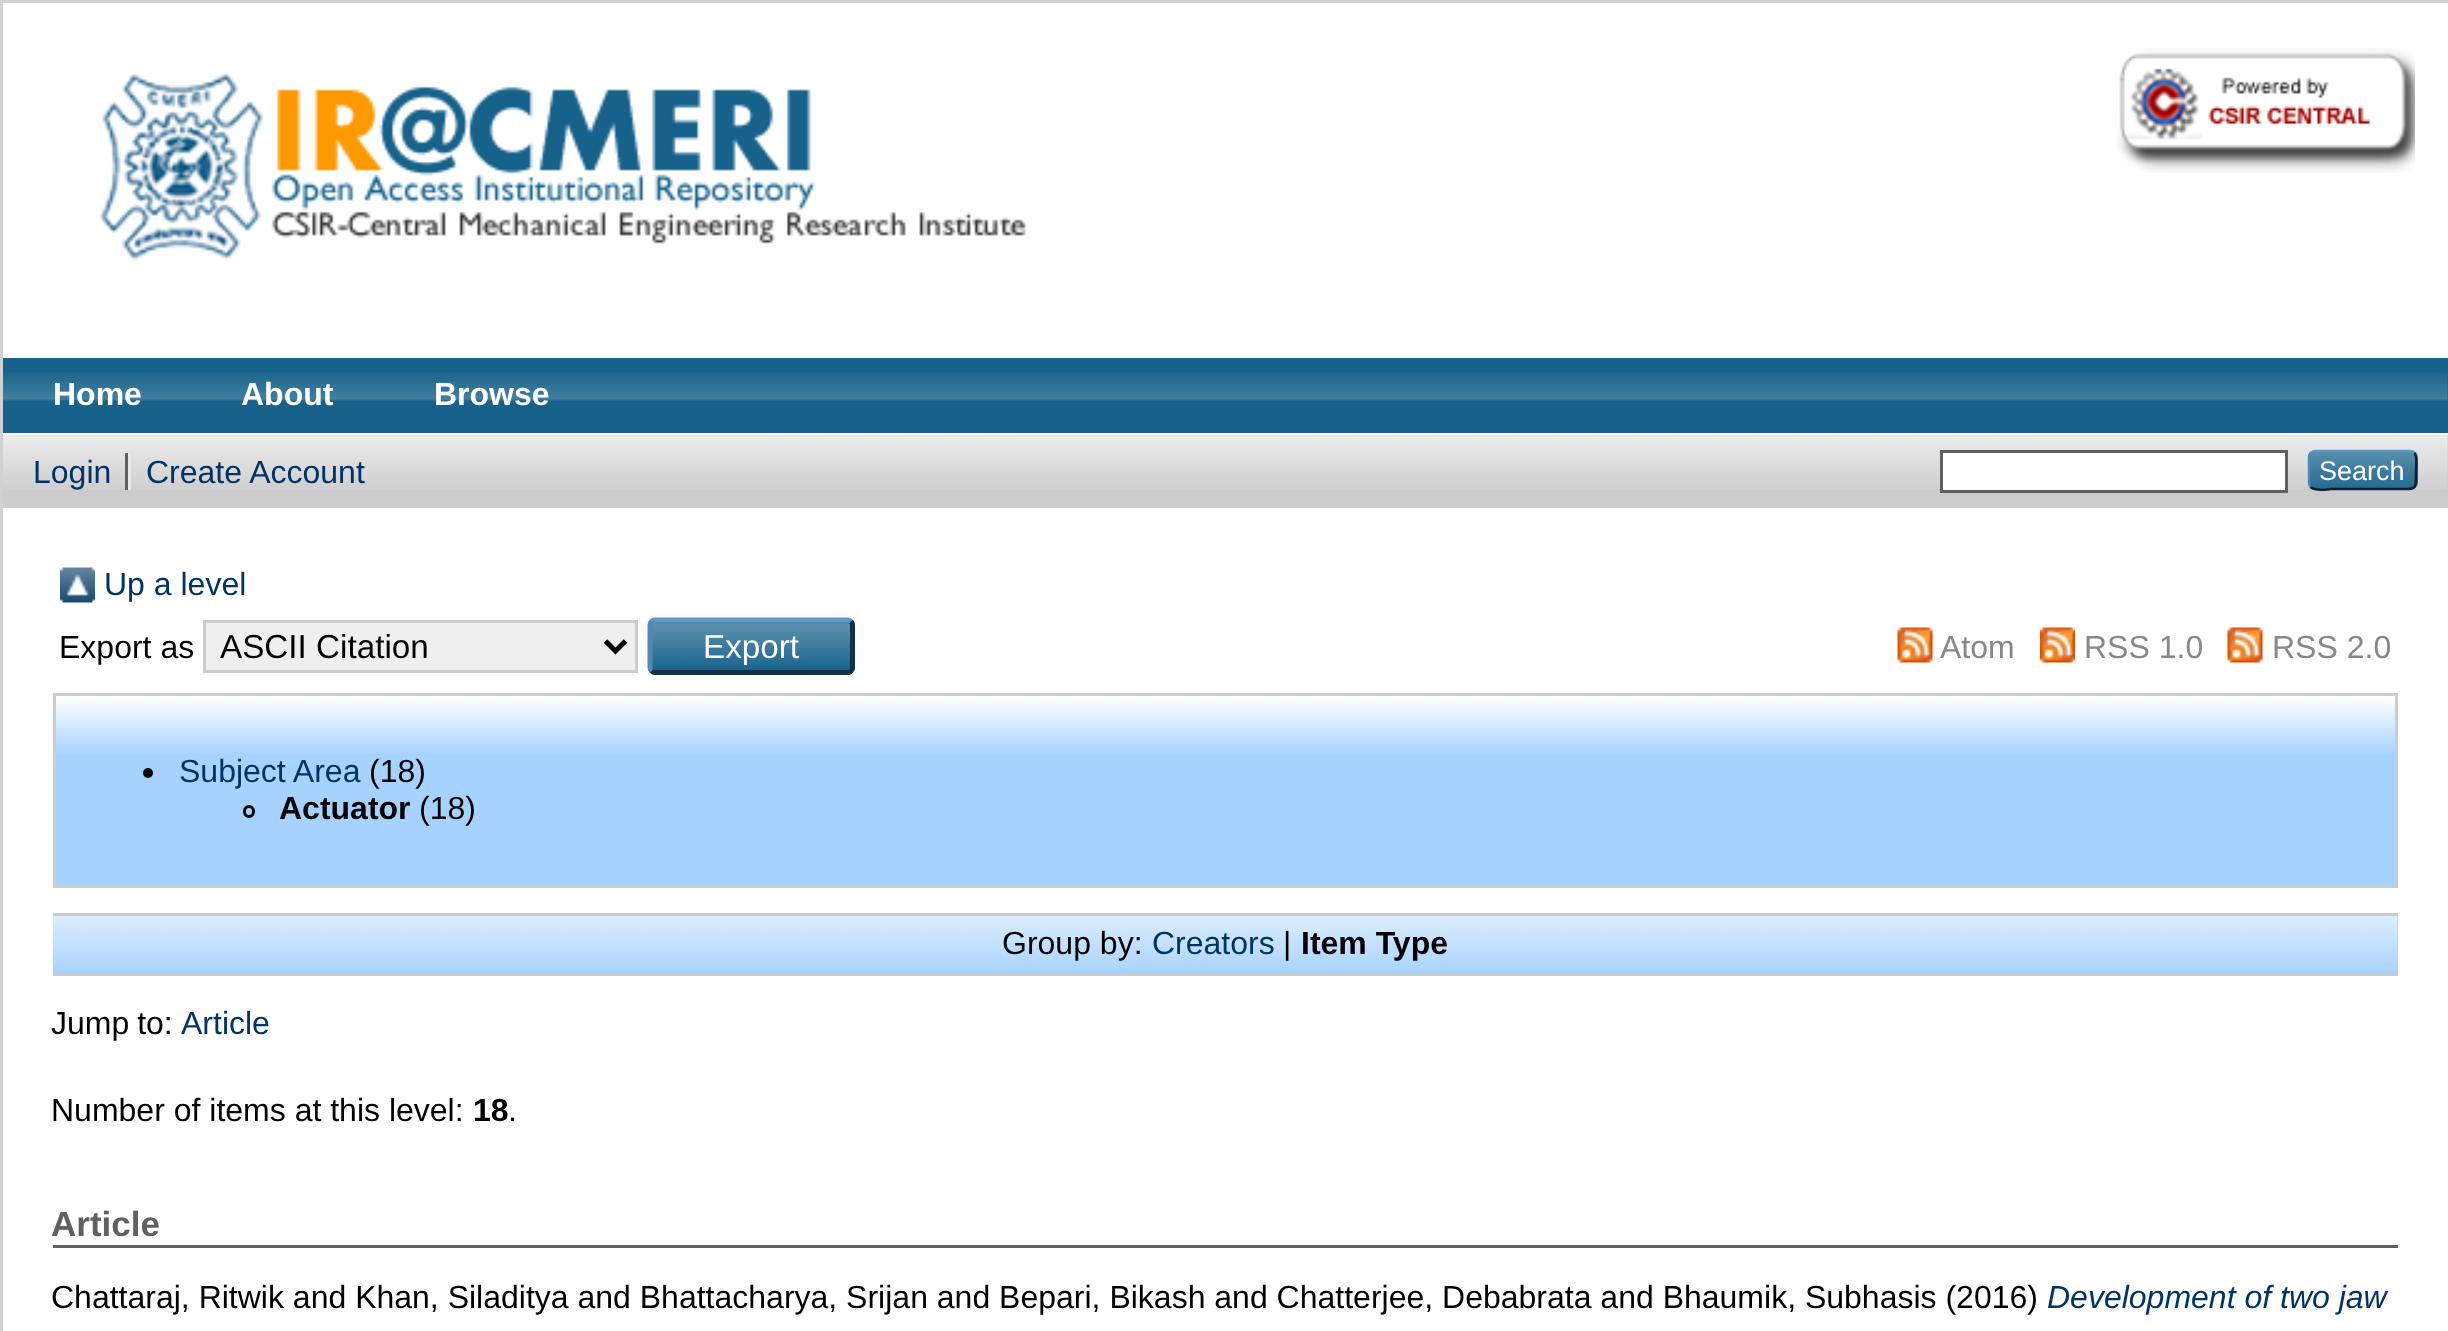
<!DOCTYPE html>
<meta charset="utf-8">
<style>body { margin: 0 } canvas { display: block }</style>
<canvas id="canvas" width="2448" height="1331"></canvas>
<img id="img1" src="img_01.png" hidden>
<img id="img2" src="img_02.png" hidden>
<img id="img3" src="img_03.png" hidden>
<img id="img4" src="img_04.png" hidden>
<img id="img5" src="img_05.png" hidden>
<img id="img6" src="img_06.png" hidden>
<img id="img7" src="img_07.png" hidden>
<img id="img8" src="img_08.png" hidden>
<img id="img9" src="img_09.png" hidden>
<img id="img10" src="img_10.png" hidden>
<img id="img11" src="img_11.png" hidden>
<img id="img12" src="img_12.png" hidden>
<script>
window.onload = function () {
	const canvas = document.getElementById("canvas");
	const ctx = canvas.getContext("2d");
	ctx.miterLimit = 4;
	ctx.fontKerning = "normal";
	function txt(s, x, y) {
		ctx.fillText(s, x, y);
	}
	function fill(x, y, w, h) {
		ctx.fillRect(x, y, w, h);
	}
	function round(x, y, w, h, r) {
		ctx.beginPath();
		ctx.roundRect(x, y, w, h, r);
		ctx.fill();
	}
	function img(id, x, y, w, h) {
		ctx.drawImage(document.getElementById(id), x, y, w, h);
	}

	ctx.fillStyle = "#FFFFFF";
	fill(0, 0, 2448, 1331);
	ctx.fillStyle = "#D1D1D1";
	fill(0, 0, 2448, 3);
	fill(0, 0, 3, 1331);
	img("img1", 99, 72, 927, 189);
	img("img2", 2116, 48, 299, 125);
	ctx.fillStyle = "#16628B";
	fill(3, 358, 2445, 75);
	img("img3", 3, 372, 2445, 29);
	ctx.fillStyle = "#CCCCCC";
	fill(3, 435, 2445, 73);
	img("img4", 3, 435, 2445, 54);
	ctx.fillStyle = "#606060";
	fill(125, 453, 3, 37);
	ctx.fillStyle = "#E8E8E8";
	fill(128, 453, 3, 37);
	ctx.fillStyle = "#FFFFFF";
	ctx.beginPath();
	ctx.rect(1941.5, 451.5, 345, 40);
	ctx.fill();
	ctx.strokeStyle = "#606060";
	ctx.lineWidth = 3;
	ctx.stroke();
	ctx.fillStyle = "#16628B";
	round(2308, 450, 110, 40, 8);
	img("img5", 2308, 450, 110, 40);
	ctx.beginPath();
	ctx.moveTo(2310.5, 453);
	ctx.bezierCurveTo(2312, 452, 2313.5, 451, 2315, 451);
	ctx.lineTo(2410, 451);
	ctx.bezierCurveTo(2411.5, 451, 2413, 452, 2414.5, 453);
	ctx.strokeStyle = "#5B97C7";
	ctx.lineWidth = 2.5;
	ctx.stroke();
	ctx.beginPath();
	ctx.moveTo(2414.5, 453);
	ctx.bezierCurveTo(2417.5, 456.5, 2416, 466, 2416, 470);
	ctx.bezierCurveTo(2416, 491.5, 2417.5, 489, 2394, 489);
	ctx.lineTo(2331, 489);
	ctx.bezierCurveTo(2329.5, 489, 2315, 491.5, 2310.5, 487);
	ctx.strokeStyle = "#0D2131";
	ctx.stroke();
	ctx.beginPath();
	ctx.moveTo(2310.5, 487);
	ctx.bezierCurveTo(2309.5, 485.5, 2309, 484, 2309, 482.5);
	ctx.lineTo(2309, 457.5);
	ctx.bezierCurveTo(2309, 456, 2309.5, 454.5, 2310.5, 453);
	ctx.strokeStyle = "#5287B3";
	ctx.stroke();
	img("img6", 60, 567, 35, 36);
	ctx.fillStyle = "#EFEFEF";
	ctx.beginPath();
	ctx.rect(204.5, 621.5, 432, 50);
	ctx.fill();
	ctx.strokeStyle = "#CCCCCC";
	ctx.lineWidth = 3;
	ctx.stroke();
	ctx.beginPath();
	ctx.moveTo(605.5, 641);
	ctx.lineTo(615.5, 651);
	ctx.lineTo(625.5, 641);
	ctx.strokeStyle = "#000000";
	ctx.lineWidth = 5;
	ctx.stroke();
	ctx.fillStyle = "#16628B";
	round(648, 618, 207, 57, 8);
	img("img7", 648, 622, 207, 48);
	ctx.beginPath();
	ctx.moveTo(651.5, 621.5);
	ctx.bezierCurveTo(652.5, 620.5, 653.5, 620, 655, 620);
	ctx.lineTo(847.5, 620);
	ctx.bezierCurveTo(849, 620, 850, 620.5, 851, 621.5);
	ctx.strokeStyle = "#5B97C7";
	ctx.stroke();
	ctx.beginPath();
	ctx.moveTo(851, 621.5);
	ctx.bezierCurveTo(852, 622.5, 852.5, 623.5, 852.5, 625);
	ctx.lineTo(852.5, 667.5);
	ctx.bezierCurveTo(852.5, 669, 852, 670, 851, 671);
	ctx.bezierCurveTo(850, 672, 849, 672.5, 847.5, 672.5);
	ctx.lineTo(655, 672.5);
	ctx.bezierCurveTo(653.5, 672.5, 652.5, 672, 651.5, 671);
	ctx.strokeStyle = "#13324A";
	ctx.stroke();
	ctx.beginPath();
	ctx.moveTo(651.5, 671);
	ctx.bezierCurveTo(650.5, 670, 650, 669, 650, 667.5);
	ctx.lineTo(650, 625);
	ctx.bezierCurveTo(650, 623.5, 650.5, 622.5, 651.5, 621.5);
	ctx.strokeStyle = "#5287B3";
	ctx.stroke();
	img("img8", 1897, 627, 36, 36);
	img("img9", 2040, 627, 35, 36);
	img("img10", 2227, 627, 36, 36);
	ctx.fillStyle = "#A6D2FF";
	fill(56, 697, 2339, 188);
	img("img11", 56, 696, 2339, 58);
	ctx.strokeStyle = "#CCCCCC";
	ctx.lineWidth = 3;
	ctx.strokeRect(54.5, 694.5, 2342, 192);
	ctx.fillStyle = "#000000";
	ctx.beginPath();
	ctx.arc(148, 773, 5, 0, Math.PI * 2);
	ctx.fill();
	ctx.beginPath();
	ctx.roundRect(244.5, 806.5, 9, 10, 4.5);
	ctx.strokeStyle = "#000000";
	ctx.stroke();
	ctx.fillStyle = "#A6D2FF";
	fill(53, 916, 2345, 57);
	img("img12", 53, 916, 2345, 56);
	ctx.fillStyle = "#CCCCCC";
	fill(53, 913, 2345, 3);
	fill(53, 973, 2345, 3);
	ctx.fillStyle = "#606060";
	fill(53, 1245, 2345, 3);
	ctx.font = "bold 32px Liberation Sans";
	ctx.fillStyle = "#FFFFFF";
	txt("Home", 53, 405);
	txt("About", 241, 405);
	txt("Browse", 434, 405);
	ctx.font = "32px Liberation Sans";
	ctx.fillStyle = "#003366";
	txt("Login", 33, 483);
	txt("Create Account", 146, 483);
	ctx.font = "27px Liberation Sans";
	ctx.fillStyle = "#FFFFFF";
	txt("Search", 2319, 480);
	ctx.font = "32px Liberation Sans";
	ctx.fillStyle = "#003366";
	txt("Up a level", 104, 595);
	ctx.fillStyle = "#000000";
	txt("Export as", 59, 658);
	ctx.font = "33.25px Liberation Sans";
	txt("ASCII Citation", 220, 658);
	ctx.fillStyle = "#FFFFFF";
	txt("Export", 703, 658);
	ctx.font = "32px Liberation Sans";
	ctx.fillStyle = "#888888";
	txt("Atom", 1940, 658);
	txt("RSS 1.0", 2084, 658);
	txt("RSS 2.0", 2272, 658);
	ctx.fillStyle = "#003366";
	txt("Subject Area", 179, 782);
	ctx.fillStyle = "#000000";
	txt("(18)", 369, 782);
	ctx.font = "bold 32px Liberation Sans";
	txt("Actuator", 279, 819);
	ctx.font = "32px Liberation Sans";
	txt("(18)", 419, 819);
	txt("Group by:", 1002, 954);
	ctx.fillStyle = "#003366";
	txt("Creators", 1152, 954);
	ctx.fillStyle = "#000000";
	txt("|", 1283, 954);
	ctx.font = "bold 32px Liberation Sans";
	txt("Item Type", 1301, 954);
	ctx.wordSpacing = "-1px";
	ctx.font = "32px Liberation Sans";
	txt("Jump to:", 51, 1034);
	ctx.wordSpacing = "0px";
	ctx.fillStyle = "#003366";
	txt("Article", 181, 1034);
	ctx.fillStyle = "#000000";
	txt("Number of items at this level:", 51, 1121);
	ctx.font = "bold 32px Liberation Sans";
	txt("18", 473, 1121);
	ctx.font = "32px Liberation Sans";
	txt(".", 508, 1121);
	ctx.font = "bold 35px Liberation Sans";
	ctx.fillStyle = "#606060";
	txt("Article", 51, 1236);
	ctx.font = "32px Liberation Sans";
	ctx.fillStyle = "#000000";
	txt("Chattaraj, Ritwik and Khan, Siladitya and Bhattacharya, Srijan and Bepari, Bikash and Chatterjee, Debabrata and Bhaumik, Subhasis (2016)", 51, 1308);
	ctx.font = "italic 32px Liberation Sans";
	ctx.fillStyle = "#003366";
	txt("Development of two jaw", 2047, 1308);
};
</script>
